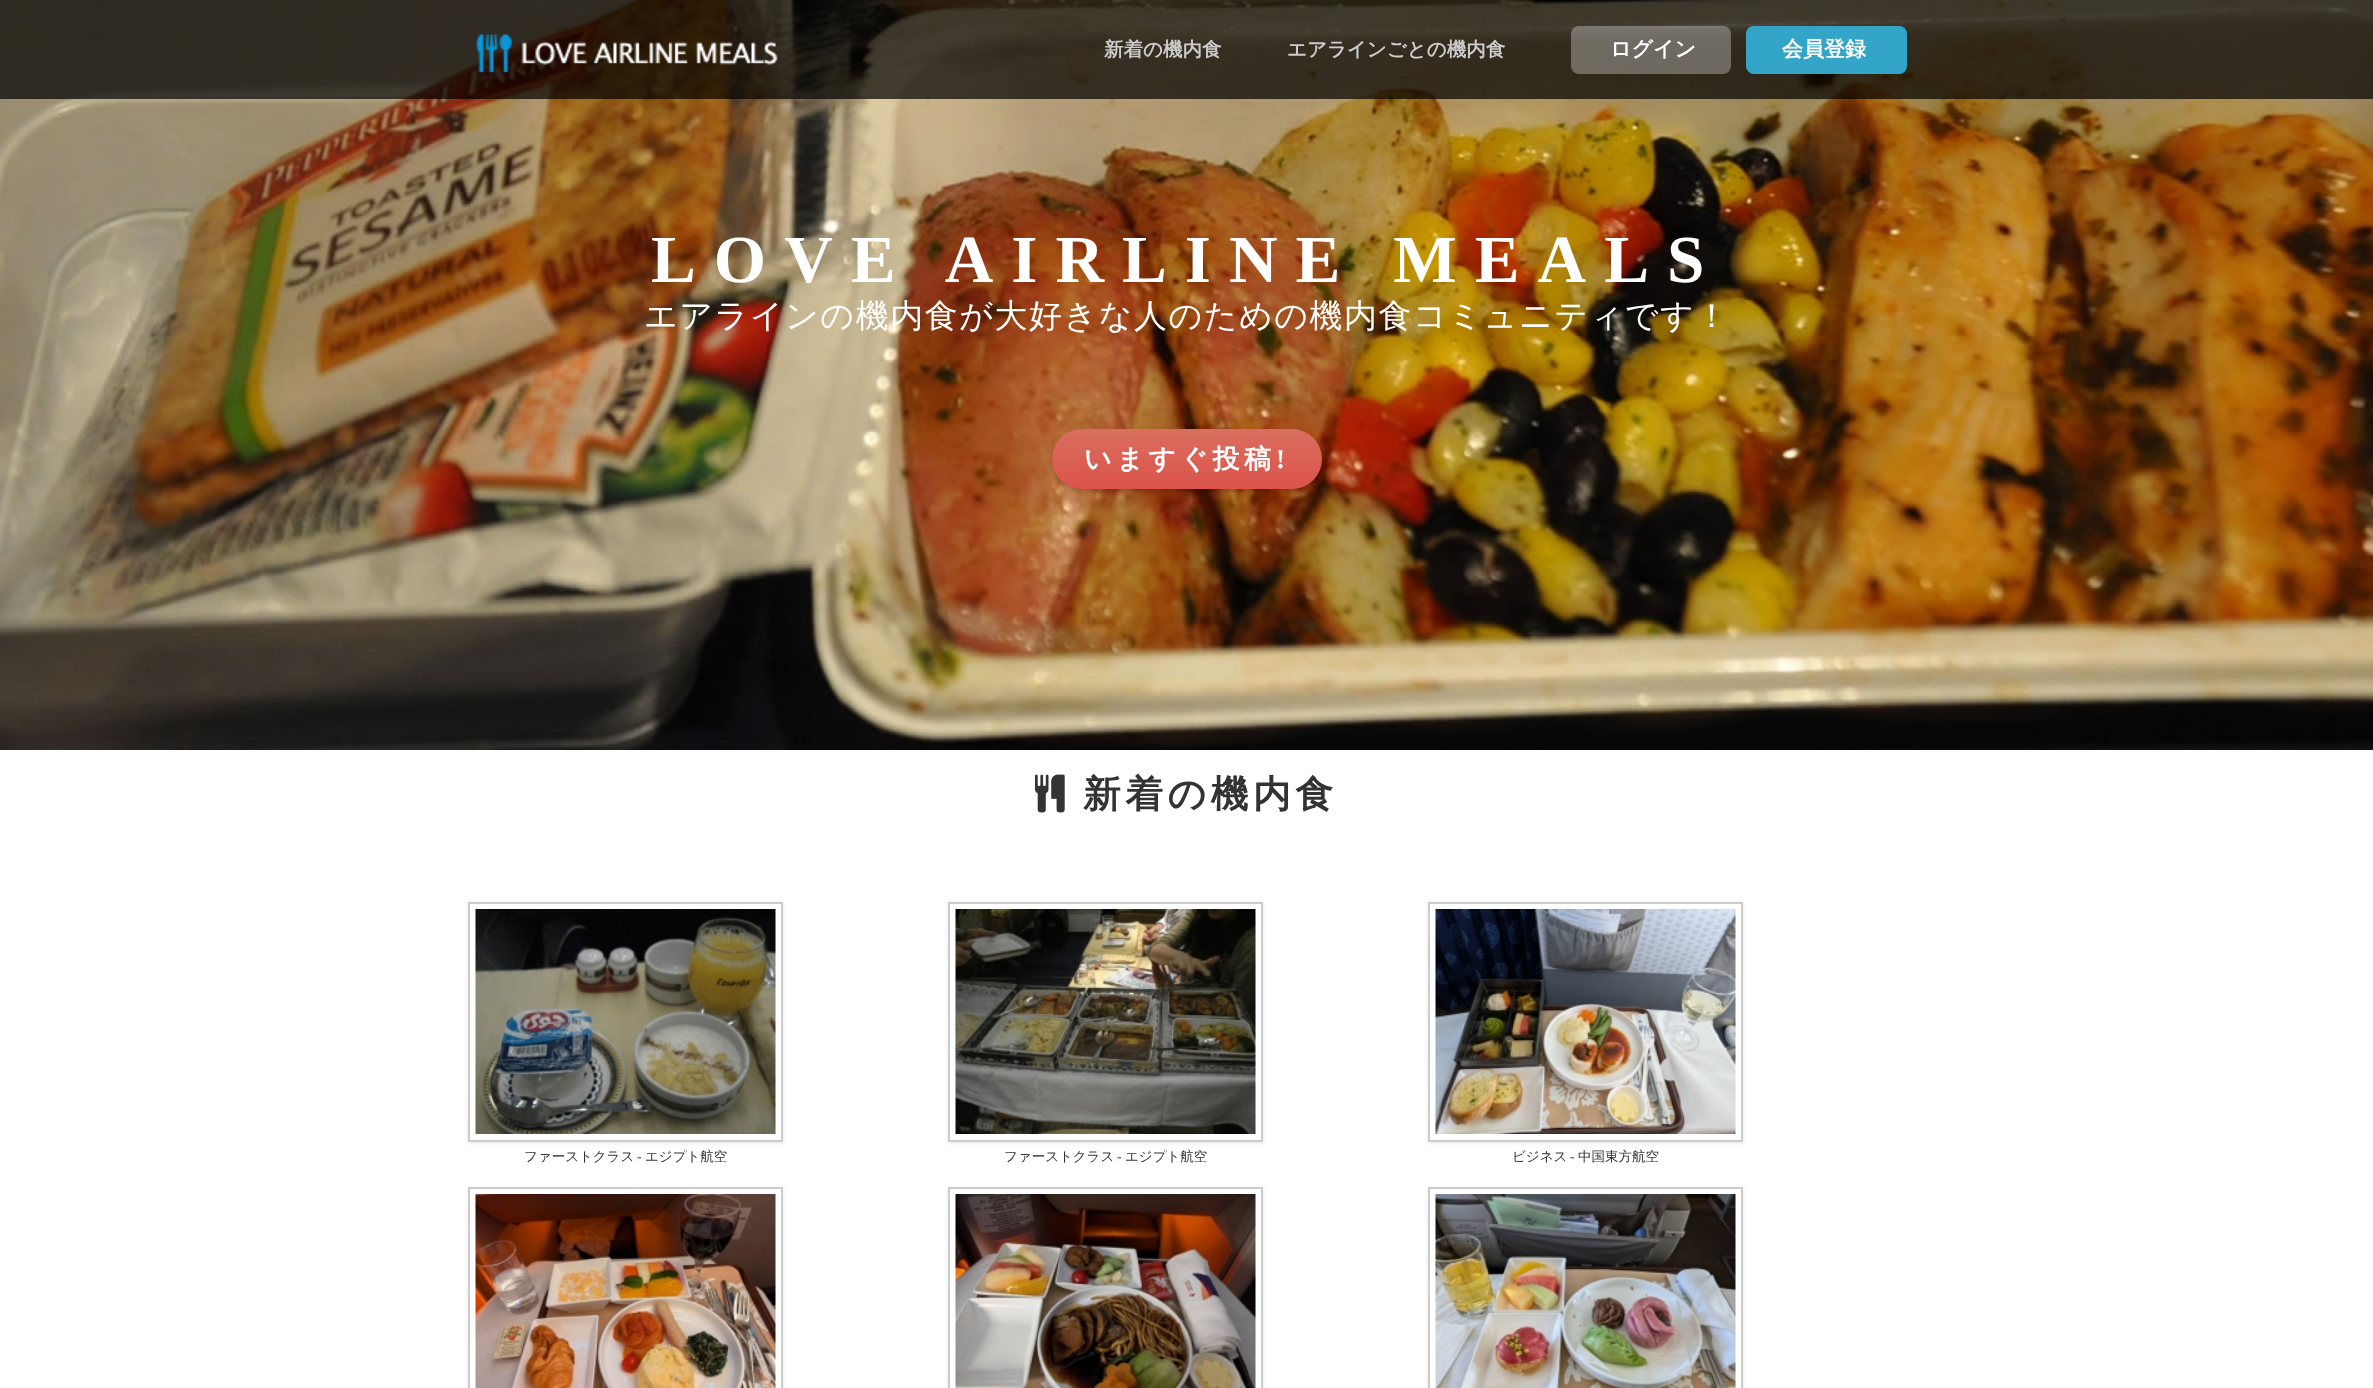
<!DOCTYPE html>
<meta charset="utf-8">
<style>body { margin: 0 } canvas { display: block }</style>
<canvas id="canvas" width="2373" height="1388"></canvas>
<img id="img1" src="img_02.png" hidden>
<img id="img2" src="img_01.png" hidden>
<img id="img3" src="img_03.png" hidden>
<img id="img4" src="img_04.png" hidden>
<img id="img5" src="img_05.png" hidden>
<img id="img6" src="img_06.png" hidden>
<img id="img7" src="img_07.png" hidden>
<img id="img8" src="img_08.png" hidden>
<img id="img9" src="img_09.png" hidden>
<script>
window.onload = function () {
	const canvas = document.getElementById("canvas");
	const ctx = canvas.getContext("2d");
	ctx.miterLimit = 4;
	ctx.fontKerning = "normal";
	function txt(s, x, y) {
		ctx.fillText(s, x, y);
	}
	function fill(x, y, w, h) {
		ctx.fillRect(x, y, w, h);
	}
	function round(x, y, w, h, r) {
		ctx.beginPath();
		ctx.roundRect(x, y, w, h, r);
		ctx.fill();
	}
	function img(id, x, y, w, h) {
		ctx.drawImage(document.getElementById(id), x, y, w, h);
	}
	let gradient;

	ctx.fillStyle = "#FFFFFF";
	fill(0, 0, 2373, 1388);
	img("img1", 0, 0, 2373, 750);
	ctx.fillStyle = "rgba(0, 0, 0, 0.7)";
	fill(0, 0, 2373, 99);
	img("img2", 475, 34, 303, 39);
	ctx.fillStyle = "rgba(255, 255, 255, 0.3)";
	round(1571, 26, 160, 48, 8);
	ctx.fillStyle = "#33A5C8";
	round(1746, 26, 161, 48, 8);
	ctx.fillStyle = "rgba(0, 0, 0, 0.2)";
	ctx.filter = "blur(2px)";
	ctx.beginPath();
	ctx.roundRect(1052, 431, 270, 60, 30);
	ctx.fill();
	ctx.filter = "none";
	gradient = ctx.createLinearGradient(1187, 489, 1187, 429);
	gradient.addColorStop(0, "#DC534B");
	gradient.addColorStop(1, "#D96F5F");
	ctx.fillStyle = gradient;
	round(1052, 429, 270, 60, 30);
	img("img3", 1035, 774, 30, 39);
	ctx.fillStyle = "rgba(0, 0, 0, 0.1)";
	ctx.filter = "blur(2px)";
	ctx.beginPath();
	ctx.rect(468, 903, 315, 240);
	ctx.fill();
	ctx.filter = "none";
	ctx.fillStyle = "#FFFFFF";
	ctx.beginPath();
	ctx.rect(469, 903, 313, 238);
	ctx.fill();
	ctx.strokeStyle = "#CCCCCC";
	ctx.lineWidth = 2;
	ctx.stroke();
	img("img4", 475, 909, 301, 225);
	ctx.fillStyle = "rgba(0, 0, 0, 0.1)";
	ctx.filter = "blur(2px)";
	ctx.beginPath();
	ctx.rect(948, 903, 315, 240);
	ctx.fill();
	ctx.filter = "none";
	ctx.fillStyle = "#FFFFFF";
	ctx.beginPath();
	ctx.rect(949, 903, 313, 238);
	ctx.fill();
	ctx.stroke();
	img("img5", 955, 909, 301, 225);
	ctx.fillStyle = "rgba(0, 0, 0, 0.1)";
	ctx.filter = "blur(2px)";
	ctx.beginPath();
	ctx.rect(1428, 903, 315, 240);
	ctx.fill();
	ctx.filter = "none";
	ctx.fillStyle = "#FFFFFF";
	ctx.beginPath();
	ctx.rect(1429, 903, 313, 238);
	ctx.fill();
	ctx.stroke();
	img("img6", 1435, 909, 301, 225);
	ctx.save();
	ctx.beginPath();
	ctx.moveTo(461, 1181);
	ctx.lineTo(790, 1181);
	ctx.lineTo(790, 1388);
	ctx.lineTo(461, 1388);
	ctx.closePath();
	ctx.moveTo(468, 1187);
	ctx.lineTo(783, 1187);
	ctx.lineTo(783, 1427);
	ctx.lineTo(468, 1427);
	ctx.closePath();
	ctx.clip("evenodd");
	ctx.fillStyle = "rgba(0, 0, 0, 0.1)";
	ctx.filter = "blur(2px)";
	ctx.beginPath();
	ctx.rect(468, 1188, 315, 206);
	ctx.fill();
	ctx.filter = "none";
	ctx.restore();
	ctx.strokeRect(469, 1188, 313, 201);
	img("img7", 475, 1194, 301, 194);
	ctx.save();
	ctx.beginPath();
	ctx.moveTo(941, 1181);
	ctx.lineTo(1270, 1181);
	ctx.lineTo(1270, 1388);
	ctx.lineTo(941, 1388);
	ctx.closePath();
	ctx.moveTo(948, 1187);
	ctx.lineTo(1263, 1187);
	ctx.lineTo(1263, 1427);
	ctx.lineTo(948, 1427);
	ctx.closePath();
	ctx.clip("evenodd");
	ctx.fillStyle = "rgba(0, 0, 0, 0.1)";
	ctx.filter = "blur(2px)";
	ctx.beginPath();
	ctx.rect(948, 1188, 315, 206);
	ctx.fill();
	ctx.filter = "none";
	ctx.restore();
	ctx.strokeRect(949, 1188, 313, 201);
	img("img8", 955, 1194, 301, 194);
	ctx.save();
	ctx.beginPath();
	ctx.moveTo(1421, 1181);
	ctx.lineTo(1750, 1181);
	ctx.lineTo(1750, 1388);
	ctx.lineTo(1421, 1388);
	ctx.closePath();
	ctx.moveTo(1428, 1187);
	ctx.lineTo(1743, 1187);
	ctx.lineTo(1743, 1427);
	ctx.lineTo(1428, 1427);
	ctx.closePath();
	ctx.clip("evenodd");
	ctx.fillStyle = "rgba(0, 0, 0, 0.1)";
	ctx.filter = "blur(2px)";
	ctx.beginPath();
	ctx.rect(1428, 1188, 315, 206);
	ctx.fill();
	ctx.filter = "none";
	ctx.restore();
	ctx.strokeRect(1429, 1188, 313, 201);
	img("img9", 1435, 1194, 301, 194);
	ctx.font = "bold 19.5px WenQuanYi Zen Hei";
	ctx.fillStyle = "#CCCCCC";
	txt("新着の機内食", 1104, 56);
	txt("エアラインごとの機内食", 1287, 56);
	ctx.font = "bold 21px WenQuanYi Zen Hei";
	ctx.fillStyle = "#FFFFFF";
	txt("ログイン", 1610, 56);
	txt("会員登録", 1782, 56);
	ctx.letterSpacing = "18px";
	ctx.font = "bold 67.25px Liberation Serif";
	txt("LOVE AIRLINE MEALS", 651, 282);
	ctx.letterSpacing = "1.5px";
	ctx.font = "500 33px WenQuanYi Zen Hei";
	txt("エアラインの機内食が大好きな人のための機内食コミュニティです！", 644, 327);
	ctx.letterSpacing = "4.5px";
	ctx.font = "bold 27px WenQuanYi Zen Hei";
	txt("いますぐ投稿", 1084, 468);
	ctx.font = "bold 27px Liberation Serif";
	txt("!", 1276, 468);
	ctx.font = "bold 37.75px WenQuanYi Zen Hei";
	ctx.fillStyle = "#333333";
	txt("新着の機内食", 1083, 807);
	ctx.letterSpacing = "0px";
	ctx.font = "500 13.5px WenQuanYi Zen Hei";
	txt("ファーストクラス", 524, 1161);
	ctx.font = "13.5px Liberation Serif";
	txt("-", 637, 1161);
	ctx.font = "500 13.5px WenQuanYi Zen Hei";
	txt("エジプト航空", 645, 1161);
	txt("ファーストクラス", 1004, 1161);
	ctx.font = "13.5px Liberation Serif";
	txt("-", 1117, 1161);
	ctx.font = "500 13.5px WenQuanYi Zen Hei";
	txt("エジプト航空", 1125, 1161);
	txt("ビジネス", 1512, 1161);
	ctx.font = "13.5px Liberation Serif";
	txt("-", 1570, 1161);
	ctx.font = "500 13.5px WenQuanYi Zen Hei";
	txt("中国東方航空", 1578, 1161);
};
</script>
